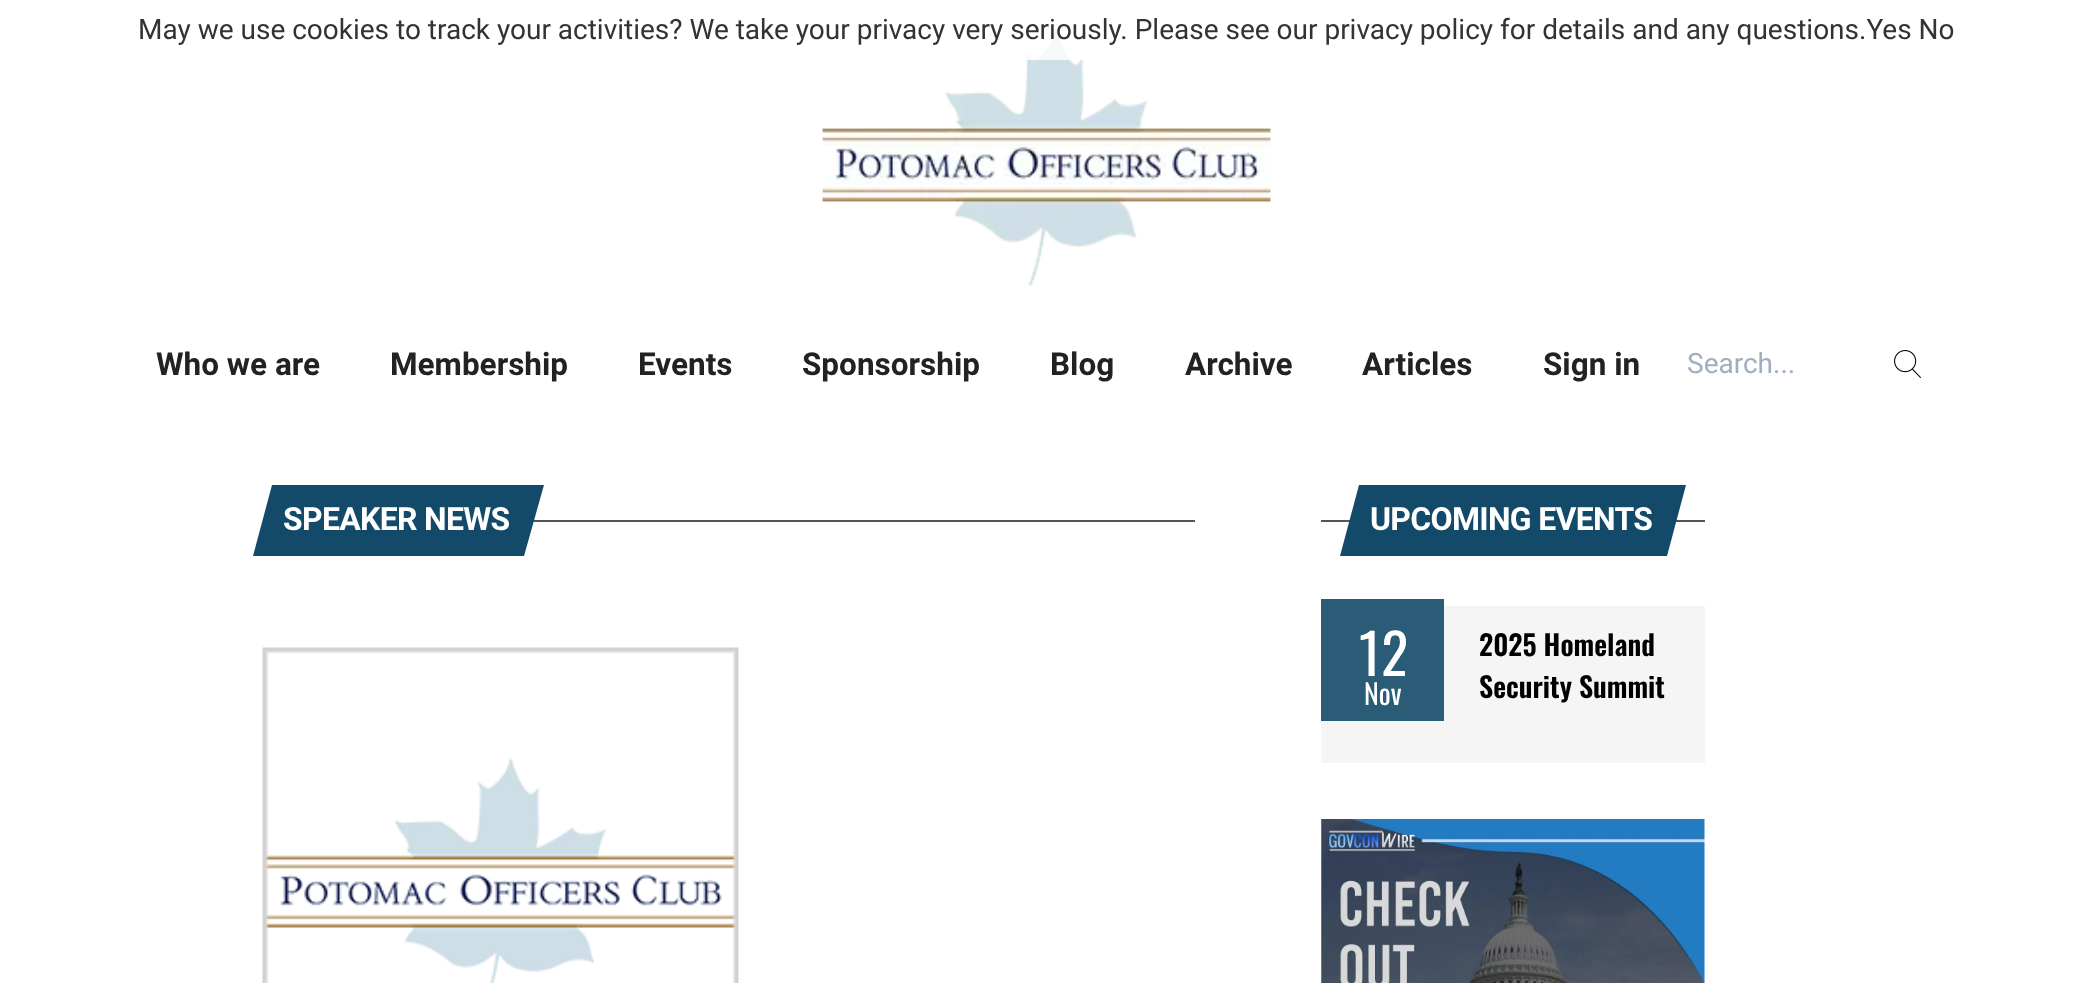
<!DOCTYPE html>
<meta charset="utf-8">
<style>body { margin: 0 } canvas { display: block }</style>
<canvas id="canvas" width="2093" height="983"></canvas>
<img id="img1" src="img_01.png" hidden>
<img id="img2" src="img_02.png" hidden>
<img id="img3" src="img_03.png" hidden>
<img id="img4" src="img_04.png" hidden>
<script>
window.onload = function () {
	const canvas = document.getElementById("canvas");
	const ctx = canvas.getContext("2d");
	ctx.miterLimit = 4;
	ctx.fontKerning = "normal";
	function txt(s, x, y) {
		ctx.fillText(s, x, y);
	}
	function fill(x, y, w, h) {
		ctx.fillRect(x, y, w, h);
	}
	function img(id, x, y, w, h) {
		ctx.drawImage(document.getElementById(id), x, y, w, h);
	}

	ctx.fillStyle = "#FFFFFF";
	fill(0, 0, 2093, 983);
	ctx.fillStyle = "#2B5C78";
	fill(1321, 599, 123, 7);
	img("img1", 822, 28, 449, 258);
	ctx.fillStyle = "rgba(255, 255, 255, 0.8)";
	fill(1023, 28, 61, 32);
	img("img2", 1894, 350, 27, 28);
	ctx.fillStyle = "#555555";
	fill(533, 520, 662, 2);
	ctx.fillStyle = "#134A69";
	ctx.beginPath();
	ctx.moveTo(272, 485);
	ctx.lineTo(544, 485);
	ctx.lineTo(524, 556);
	ctx.lineTo(253, 556);
	ctx.closePath();
	ctx.fill();
	img("img3", 262, 647, 477, 336);
	ctx.fillStyle = "#555555";
	fill(1321, 520, 384, 2);
	ctx.fillStyle = "#134A69";
	ctx.beginPath();
	ctx.moveTo(1359, 485);
	ctx.lineTo(1686, 485);
	ctx.lineTo(1667, 556);
	ctx.lineTo(1340, 556);
	ctx.closePath();
	ctx.fill();
	ctx.fillStyle = "#F5F5F5";
	fill(1321, 606, 384, 157);
	ctx.fillStyle = "#2A5B77";
	fill(1321, 606, 123, 115);
	img("img4", 1321, 819, 384, 164);
	ctx.font = "28px Roboto";
	ctx.fillStyle = "#333333";
	txt("May we use cookies to track your activities? We take your privacy very seriously. Please see our privacy policy for details and any questions.Yes No", 138, 39);
	ctx.font = "bold 31.5px Roboto";
	ctx.fillStyle = "#222222";
	txt("Who we are", 156, 375);
	txt("Membership", 390, 375);
	txt("Events", 638, 375);
	txt("Sponsorship", 802, 375);
	txt("Blog", 1050, 375);
	txt("Archive", 1185, 375);
	txt("Articles", 1362, 375);
	txt("Sign in", 1543, 375);
	ctx.font = "28px Roboto";
	ctx.fillStyle = "#A0AEC0";
	txt("Search...", 1687, 373);
	ctx.letterSpacing = "-0.7px";
	ctx.font = "bold 32px Roboto";
	ctx.fillStyle = "#FFFFFF";
	txt("SPEAKER NEWS", 283, 530);
	txt("UPCOMING EVENTS", 1370, 530);
	ctx.letterSpacing = "0px";
	ctx.font = "56px Oswald";
	txt("12", 1359, 676);
	ctx.font = "28px Oswald";
	txt("Nov", 1364, 705);
	ctx.font = "600 28px Oswald";
	ctx.fillStyle = "#000000";
	txt("2025 Homeland", 1479, 656);
	txt("Security Summit", 1479, 698);
};
</script>
